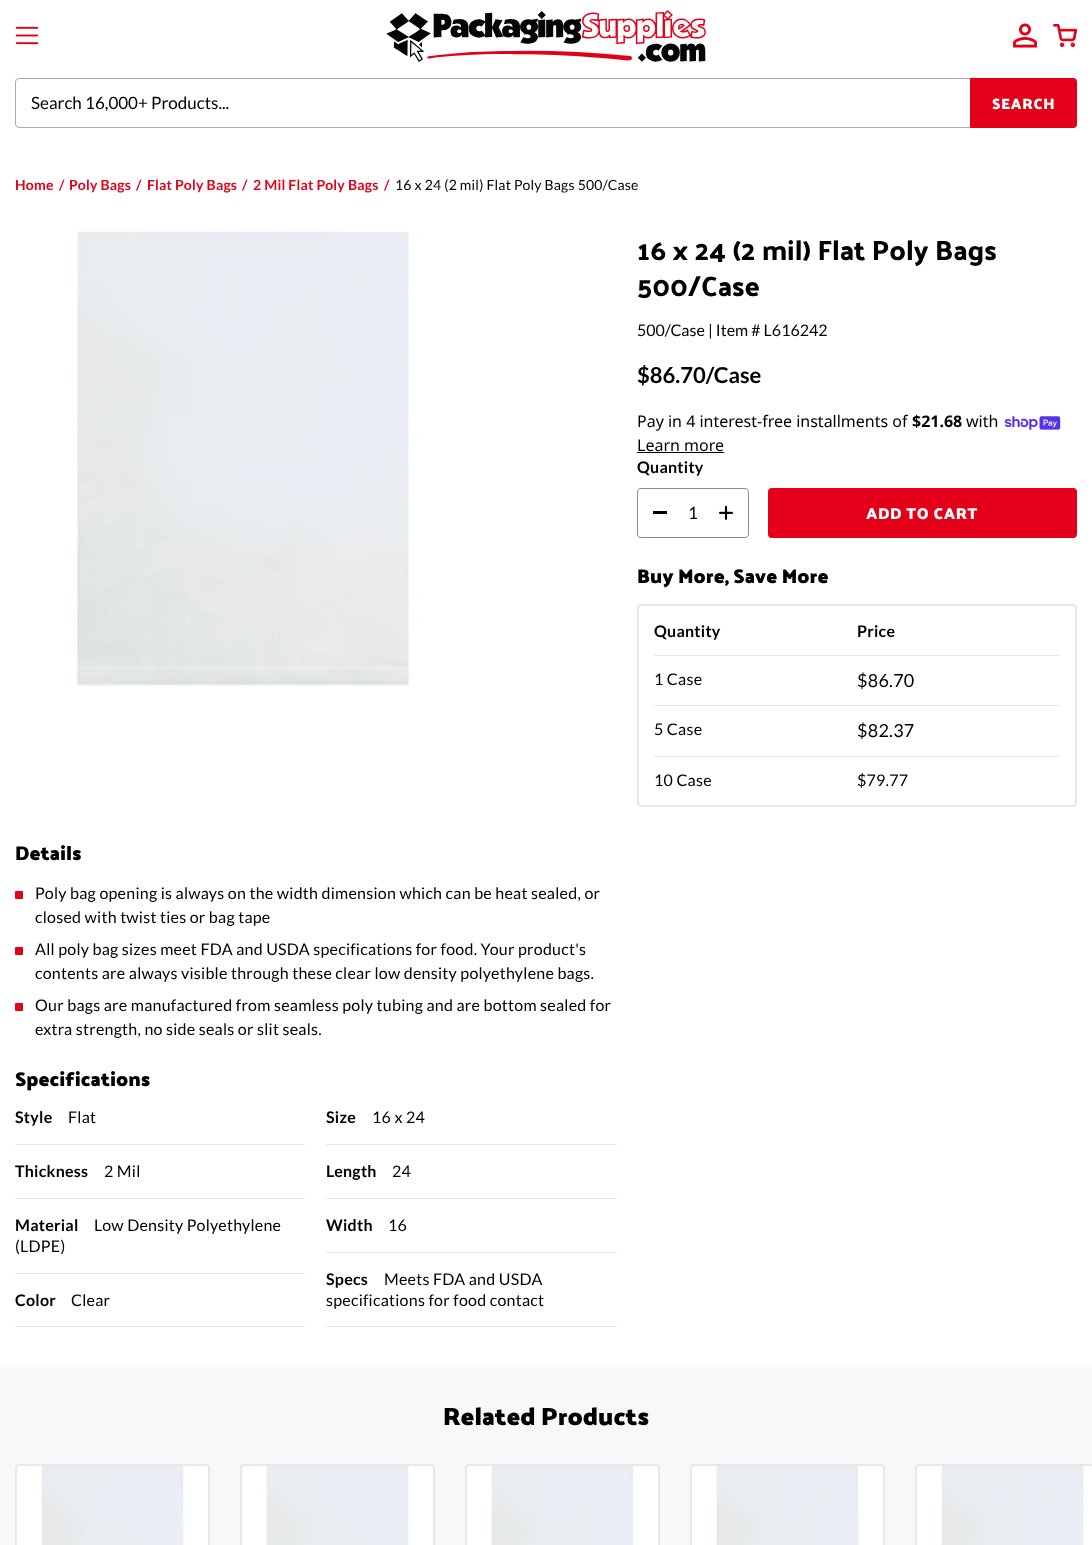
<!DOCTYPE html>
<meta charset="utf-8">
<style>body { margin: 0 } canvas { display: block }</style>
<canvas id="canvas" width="1092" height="1545"></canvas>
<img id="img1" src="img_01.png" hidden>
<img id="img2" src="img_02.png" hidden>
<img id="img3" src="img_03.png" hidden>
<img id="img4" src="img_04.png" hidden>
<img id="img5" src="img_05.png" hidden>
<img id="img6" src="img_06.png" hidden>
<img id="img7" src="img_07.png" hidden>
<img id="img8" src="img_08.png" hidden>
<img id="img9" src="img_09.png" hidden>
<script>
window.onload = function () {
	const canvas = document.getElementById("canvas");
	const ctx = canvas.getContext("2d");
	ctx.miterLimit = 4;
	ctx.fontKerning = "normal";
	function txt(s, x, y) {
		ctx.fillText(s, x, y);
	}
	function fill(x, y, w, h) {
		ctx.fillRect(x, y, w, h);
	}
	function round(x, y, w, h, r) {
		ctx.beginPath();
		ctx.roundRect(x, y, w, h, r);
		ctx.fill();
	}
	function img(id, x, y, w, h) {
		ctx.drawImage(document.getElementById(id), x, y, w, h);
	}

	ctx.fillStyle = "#FFFFFF";
	fill(0, 0, 1092, 1545);
	img("img1", 15, 26, 24, 19);
	img("img2", 386, 10, 320, 52);
	img("img3", 1013, 23, 24, 25);
	img("img4", 1053, 24, 25, 24);
	ctx.beginPath();
	ctx.roundRect(15.5, 78.5, 955, 49, [3.5, 0, 0, 3.5]);
	ctx.strokeStyle = "#AAAAAA";
	ctx.stroke();
	ctx.fillStyle = "#E50019";
	ctx.beginPath();
	ctx.roundRect(970, 78, 107, 50, [0, 4, 4, 0]);
	ctx.fill();
	img("img5", 15, 231, 456, 456);
	img("img6", 1004, 416, 57, 14);
	ctx.fillStyle = "#000000";
	fill(637, 452, 87, 1);
	ctx.fillStyle = "#8D8D8D";
	ctx.beginPath();
	ctx.moveTo(641, 488);
	ctx.lineTo(667, 488);
	ctx.lineTo(667, 538);
	ctx.lineTo(641, 538);
	ctx.bezierCurveTo(639, 538, 637, 536, 637, 534);
	ctx.lineTo(637, 492);
	ctx.bezierCurveTo(637, 490, 639, 488, 641, 488);
	ctx.closePath();
	ctx.moveTo(641, 489);
	ctx.lineTo(667, 489);
	ctx.lineTo(667, 537);
	ctx.lineTo(641, 537);
	ctx.bezierCurveTo(639, 537, 638, 536, 638, 534);
	ctx.lineTo(638, 492);
	ctx.bezierCurveTo(638, 490, 639, 489, 641, 489);
	ctx.closePath();
	ctx.fill("evenodd");
	ctx.fillStyle = "#000000";
	fill(653, 511, 14, 3);
	ctx.fillStyle = "#8D8D8D";
	fill(666, 488, 53, 1);
	fill(666, 537, 53, 1);
	ctx.beginPath();
	ctx.moveTo(719, 488);
	ctx.lineTo(745, 488);
	ctx.bezierCurveTo(747, 488, 749, 490, 749, 492);
	ctx.lineTo(749, 534);
	ctx.bezierCurveTo(749, 536, 747, 538, 745, 538);
	ctx.lineTo(719, 538);
	ctx.closePath();
	ctx.moveTo(719, 489);
	ctx.lineTo(745, 489);
	ctx.bezierCurveTo(747, 489, 748, 490, 748, 492);
	ctx.lineTo(748, 534);
	ctx.bezierCurveTo(748, 536, 747, 537, 745, 537);
	ctx.lineTo(719, 537);
	ctx.closePath();
	ctx.fill("evenodd");
	img("img7", 719, 505, 14, 15);
	ctx.fillStyle = "#E50019";
	ctx.beginPath();
	ctx.roundRect(769, 489, 307, 48, 3);
	ctx.fill();
	ctx.strokeStyle = "#E50019";
	ctx.lineWidth = 2;
	ctx.stroke();
	ctx.beginPath();
	ctx.roundRect(638, 605, 438, 201, 3);
	ctx.strokeStyle = "#E8E8E8";
	ctx.stroke();
	ctx.fillStyle = "#E8E8E8";
	fill(654, 655, 406, 1);
	fill(654, 705, 406, 1);
	fill(654, 756, 406, 1);
	ctx.fillStyle = "#E50019";
	round(15, 891, 8, 8, 1);
	round(15, 947, 8, 8, 1);
	round(15, 1003, 8, 8, 1);
	ctx.fillStyle = "#E8E8E8";
	fill(15, 1144, 290, 1);
	fill(326, 1144, 291, 1);
	fill(15, 1198, 290, 1);
	fill(326, 1198, 291, 1);
	fill(15, 1273, 290, 1);
	fill(326, 1252, 291, 1);
	fill(15, 1326, 290, 1);
	fill(326, 1326, 291, 1);
	ctx.fillStyle = "#F8F8F8";
	fill(0, 1367, 1092, 178);
	img("img8", 15, 1464, 195, 81);
	ctx.beginPath();
	ctx.roundRect(16, 1465, 193, 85, 3);
	ctx.stroke();
	img("img8", 240, 1464, 195, 81);
	ctx.beginPath();
	ctx.roundRect(241, 1465, 193, 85, 3);
	ctx.stroke();
	img("img8", 465, 1464, 195, 81);
	ctx.beginPath();
	ctx.roundRect(466, 1465, 193, 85, 3);
	ctx.stroke();
	img("img8", 690, 1464, 195, 81);
	ctx.beginPath();
	ctx.roundRect(691, 1465, 193, 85, 3);
	ctx.stroke();
	img("img9", 915, 1464, 177, 81);
	ctx.beginPath();
	ctx.roundRect(916, 1465, 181, 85, 3);
	ctx.stroke();
	ctx.font = "17px Lato";
	ctx.fillStyle = "#000000";
	txt("Search 16,000+ Products...", 31, 109);
	ctx.letterSpacing = "0.75px";
	ctx.font = "bold 15px Palanquin Dark";
	ctx.fillStyle = "#FFFFFF";
	txt("SEARCH", 992, 109);
	ctx.letterSpacing = "0.2px";
	ctx.font = "bold 14px Lato";
	ctx.fillStyle = "#E50019";
	txt("Home", 15, 190);
	txt("/", 59, 190);
	txt("Poly Bags", 69, 190);
	txt("/", 136, 190);
	txt("Flat Poly Bags", 147, 190);
	txt("/", 242, 190);
	txt("2 Mil Flat Poly Bags", 253, 190);
	txt("/", 384, 190);
	ctx.font = "14px Lato";
	ctx.fillStyle = "#000000";
	txt("16 x 24 (2 mil) Flat Poly Bags 500/Case", 395, 190);
	ctx.letterSpacing = "0px";
	ctx.font = "500 28px Palanquin Dark";
	txt("16 x 24 (2 mil) Flat Poly Bags", 637, 260);
	txt("500/Case", 637, 296);
	ctx.font = "16px Lato";
	txt("500/Case | Item # L616242", 637, 336);
	ctx.font = "bold 22px Lato";
	txt("$86.70/Case", 637, 383);
	ctx.font = "16px Noto Sans";
	txt("Pay in 4 interest-free installments of", 637, 427);
	ctx.font = "bold 16px Noto Sans";
	txt("$21.68", 912, 427);
	ctx.font = "16px Noto Sans";
	txt("with", 966, 427);
	txt("Learn more", 637, 451);
	ctx.letterSpacing = "0.25px";
	ctx.font = "bold 16px Lato";
	txt("Quantity", 637, 473);
	ctx.letterSpacing = "0px";
	ctx.font = "17px Lato";
	txt("1", 688, 519);
	ctx.letterSpacing = "0.6px";
	ctx.font = "bold 16px Palanquin Dark";
	ctx.fillStyle = "#FFFFFF";
	txt("ADD TO CART", 866, 519);
	ctx.letterSpacing = "0px";
	ctx.font = "bold 20px Palanquin Dark";
	ctx.fillStyle = "#000000";
	txt("Buy More, Save More", 637, 583);
	ctx.letterSpacing = "0.25px";
	ctx.font = "bold 16px Lato";
	txt("Quantity", 654, 637);
	txt("Price", 857, 637);
	ctx.font = "16px Lato";
	txt("1 Case", 654, 685);
	ctx.font = "18px Lato";
	txt("$86.70", 857, 687);
	ctx.font = "16px Lato";
	txt("5 Case", 654, 735);
	ctx.font = "18px Lato";
	txt("$82.37", 857, 737);
	ctx.font = "16px Lato";
	txt("10 Case", 654, 786);
	txt("$79.77", 857, 786);
	ctx.letterSpacing = "0px";
	ctx.font = "bold 20px Palanquin Dark";
	txt("Details", 15, 860);
	ctx.letterSpacing = "0.25px";
	ctx.font = "16px Lato";
	txt("Poly bag opening is always on the width dimension which can be heat sealed, or", 35, 899);
	txt("closed with twist ties or bag tape", 35, 923);
	txt("All poly bag sizes meet FDA and USDA specifications for food. Your product's", 35, 955);
	txt("contents are always visible through these clear low density polyethylene bags.", 35, 979);
	txt("Our bags are manufactured from seamless poly tubing and are bottom sealed for", 35, 1011);
	txt("extra strength, no side seals or slit seals.", 35, 1035);
	ctx.letterSpacing = "0px";
	ctx.font = "bold 20px Palanquin Dark";
	txt("Specifications", 15, 1086);
	ctx.letterSpacing = "0.25px";
	ctx.font = "bold 16px Lato";
	txt("Style", 15, 1123);
	ctx.font = "16px Lato";
	txt("Flat", 68, 1123);
	ctx.font = "bold 16px Lato";
	txt("Size", 326, 1123);
	ctx.font = "16px Lato";
	txt("16 x 24", 372, 1123);
	ctx.font = "bold 16px Lato";
	txt("Thickness", 15, 1177);
	ctx.font = "16px Lato";
	txt("2 Mil", 104, 1177);
	ctx.font = "bold 16px Lato";
	txt("Length", 326, 1177);
	ctx.font = "16px Lato";
	txt("24", 392, 1177);
	ctx.font = "bold 16px Lato";
	txt("Material", 15, 1231);
	ctx.font = "16px Lato";
	txt("Low Density Polyethylene", 94, 1231);
	txt("(LDPE)", 15, 1252);
	ctx.font = "bold 16px Lato";
	txt("Width", 326, 1231);
	ctx.font = "16px Lato";
	txt("16", 388, 1231);
	ctx.font = "bold 16px Lato";
	txt("Color", 15, 1306);
	ctx.font = "16px Lato";
	txt("Clear", 71, 1306);
	ctx.font = "bold 16px Lato";
	txt("Specs", 326, 1285);
	ctx.font = "16px Lato";
	txt("Meets FDA and USDA", 384, 1285);
	txt("specifications for food contact", 326, 1306);
	ctx.letterSpacing = "0px";
	ctx.font = "bold 25px Palanquin Dark";
	txt("Related Products", 443, 1425);
};
</script>
